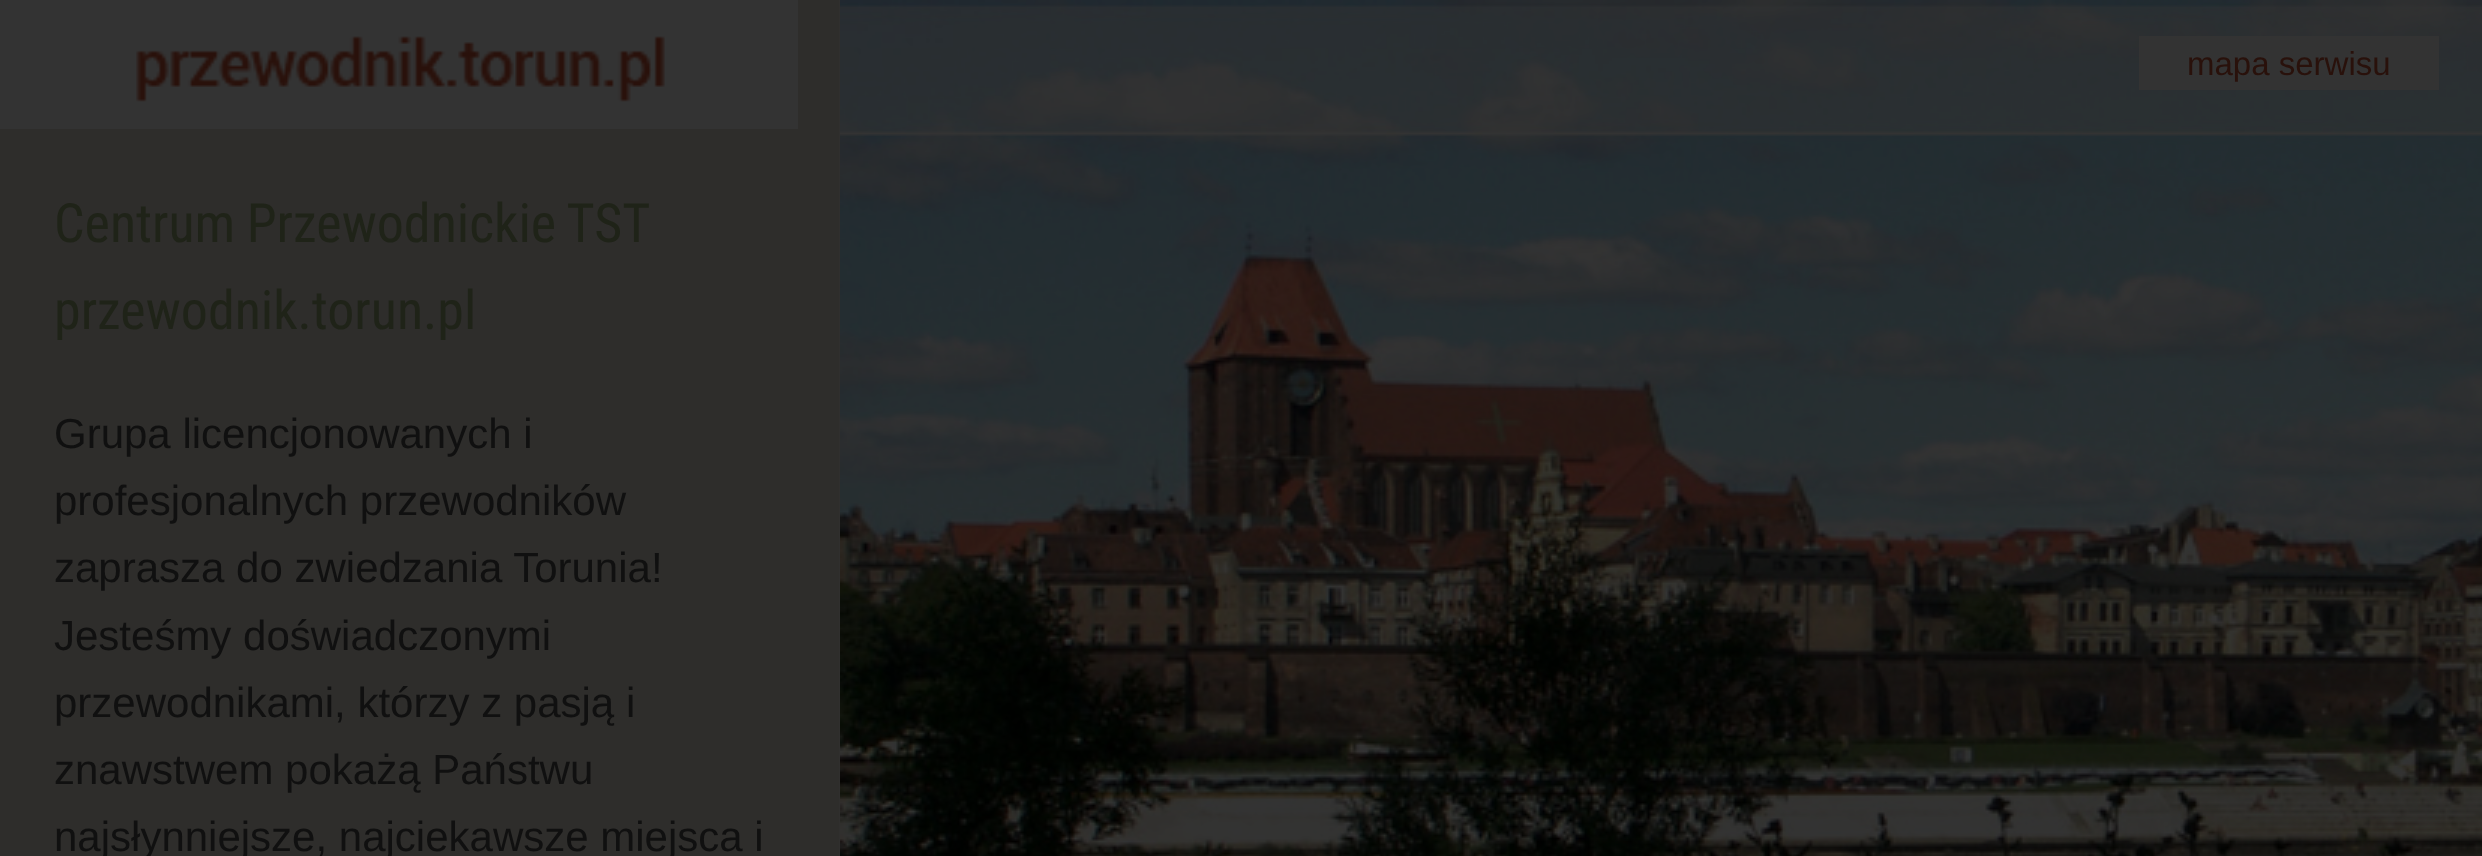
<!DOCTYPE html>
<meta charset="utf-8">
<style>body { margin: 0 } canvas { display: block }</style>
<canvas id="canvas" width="2482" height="856"></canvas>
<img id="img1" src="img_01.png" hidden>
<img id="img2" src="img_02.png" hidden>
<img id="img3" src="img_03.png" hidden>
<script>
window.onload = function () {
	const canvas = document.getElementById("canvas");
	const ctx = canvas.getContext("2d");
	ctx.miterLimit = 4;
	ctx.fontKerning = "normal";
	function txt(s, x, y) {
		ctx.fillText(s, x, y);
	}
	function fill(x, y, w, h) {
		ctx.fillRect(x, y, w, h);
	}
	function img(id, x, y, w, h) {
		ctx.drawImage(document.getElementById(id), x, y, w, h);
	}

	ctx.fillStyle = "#FFFFFF";
	fill(0, 0, 2482, 856);
	img("img1", 0, 0, 840, 856);
	img("img2", 840, 0, 1642, 856);
	ctx.fillStyle = "#333333";
	fill(2139, 36, 300, 54);
	img("img3", 0, 0, 798, 129);
	ctx.font = "33px Liberation Sans";
	ctx.fillStyle = "#29110B";
	txt("mapa serwisu", 2187, 75);
	ctx.wordSpacing = "-1px";
	ctx.font = "54px Roboto Condensed";
	ctx.fillStyle = "#1F2318";
	txt("Centrum Przewodnickie TST", 54, 242);
	ctx.wordSpacing = "0px";
	txt("przewodnik.torun.pl", 54, 329);
	ctx.font = "42px Liberation Sans";
	ctx.fillStyle = "#101010";
	txt("Grupa licencjonowanych i", 54, 448);
	txt("profesjonalnych przewodników", 54, 515);
	txt("zaprasza do zwiedzania Torunia!", 54, 582);
	txt("Jesteśmy doświadczonymi", 54, 650);
	txt("przewodnikami, którzy z pasją i", 54, 717);
	txt("znawstwem pokażą Państwu", 54, 784);
	txt("najsłynniejsze, najciekawsze miejsca i", 54, 851);
};
</script>
